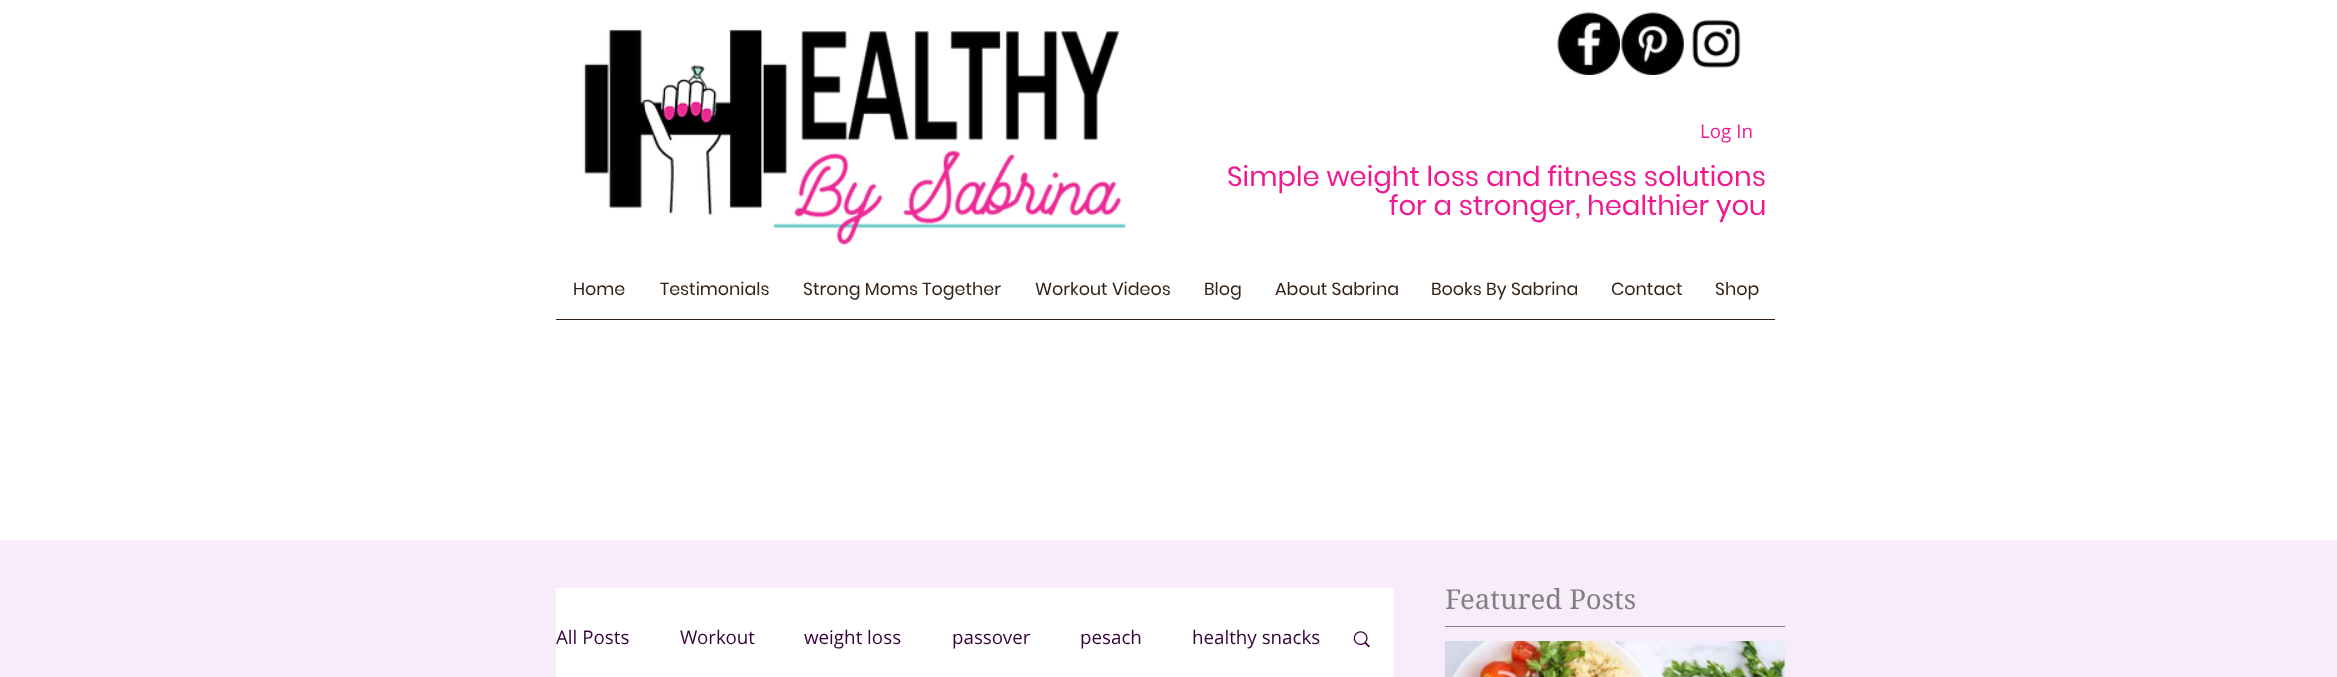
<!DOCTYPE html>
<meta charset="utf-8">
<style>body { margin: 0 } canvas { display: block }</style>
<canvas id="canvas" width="2337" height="677"></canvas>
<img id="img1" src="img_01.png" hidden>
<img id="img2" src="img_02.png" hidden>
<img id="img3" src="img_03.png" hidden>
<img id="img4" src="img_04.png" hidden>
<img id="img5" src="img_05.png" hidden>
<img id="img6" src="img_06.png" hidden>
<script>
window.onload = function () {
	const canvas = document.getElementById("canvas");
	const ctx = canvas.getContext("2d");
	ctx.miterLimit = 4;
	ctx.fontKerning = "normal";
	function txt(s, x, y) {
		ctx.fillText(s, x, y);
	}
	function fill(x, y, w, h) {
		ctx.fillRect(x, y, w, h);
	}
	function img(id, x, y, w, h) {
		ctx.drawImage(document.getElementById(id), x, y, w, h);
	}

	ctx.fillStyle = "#FFFFFF";
	fill(0, 0, 2337, 677);
	img("img1", 583, 29, 544, 217);
	img("img2", 1557, 12, 63, 63);
	img("img3", 1621, 12, 63, 63);
	img("img4", 1692, 19, 49, 49);
	ctx.fillStyle = "#342216";
	fill(556, 319, 1219, 1);
	ctx.fillStyle = "#F8ECFB";
	fill(0, 540, 2337, 137);
	ctx.fillStyle = "#808080";
	fill(1445, 626, 340, 1);
	ctx.fillStyle = "#FFFFFF";
	fill(556, 588, 838, 89);
	img("img5", 1353, 631, 17, 17);
	img("img6", 1445, 641, 340, 36);
	ctx.font = "18.75px Open Sans";
	ctx.fillStyle = "#F21890";
	txt("Log In", 1700, 138);
	ctx.font = "27.5px Poppins";
	txt("Simple weight loss and fitness solutions", 1227, 186);
	txt("for a stronger, healthier you", 1389, 215);
	ctx.font = "17.5px Poppins";
	ctx.fillStyle = "#342216";
	txt("Home", 573, 295);
	txt("Testimonials", 660, 295);
	txt("Strong Moms Together", 803, 295);
	txt("Workout Videos", 1035, 295);
	txt("Blog", 1204, 295);
	txt("About Sabrina", 1275, 295);
	txt("Books By Sabrina", 1431, 295);
	txt("Contact", 1611, 295);
	txt("Shop", 1715, 295);
	ctx.font = "27.5px 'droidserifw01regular'";
	ctx.fillStyle = "#808080";
	txt("Featured Posts", 1445, 609);
	ctx.font = "18.75px Open Sans";
	ctx.fillStyle = "#37023B";
	txt("All Posts", 556, 644);
	txt("Workout", 680, 644);
	txt("weight loss", 804, 644);
	txt("passover", 952, 644);
	txt("pesach", 1080, 644);
	txt("healthy snacks", 1192, 644);
};
</script>
